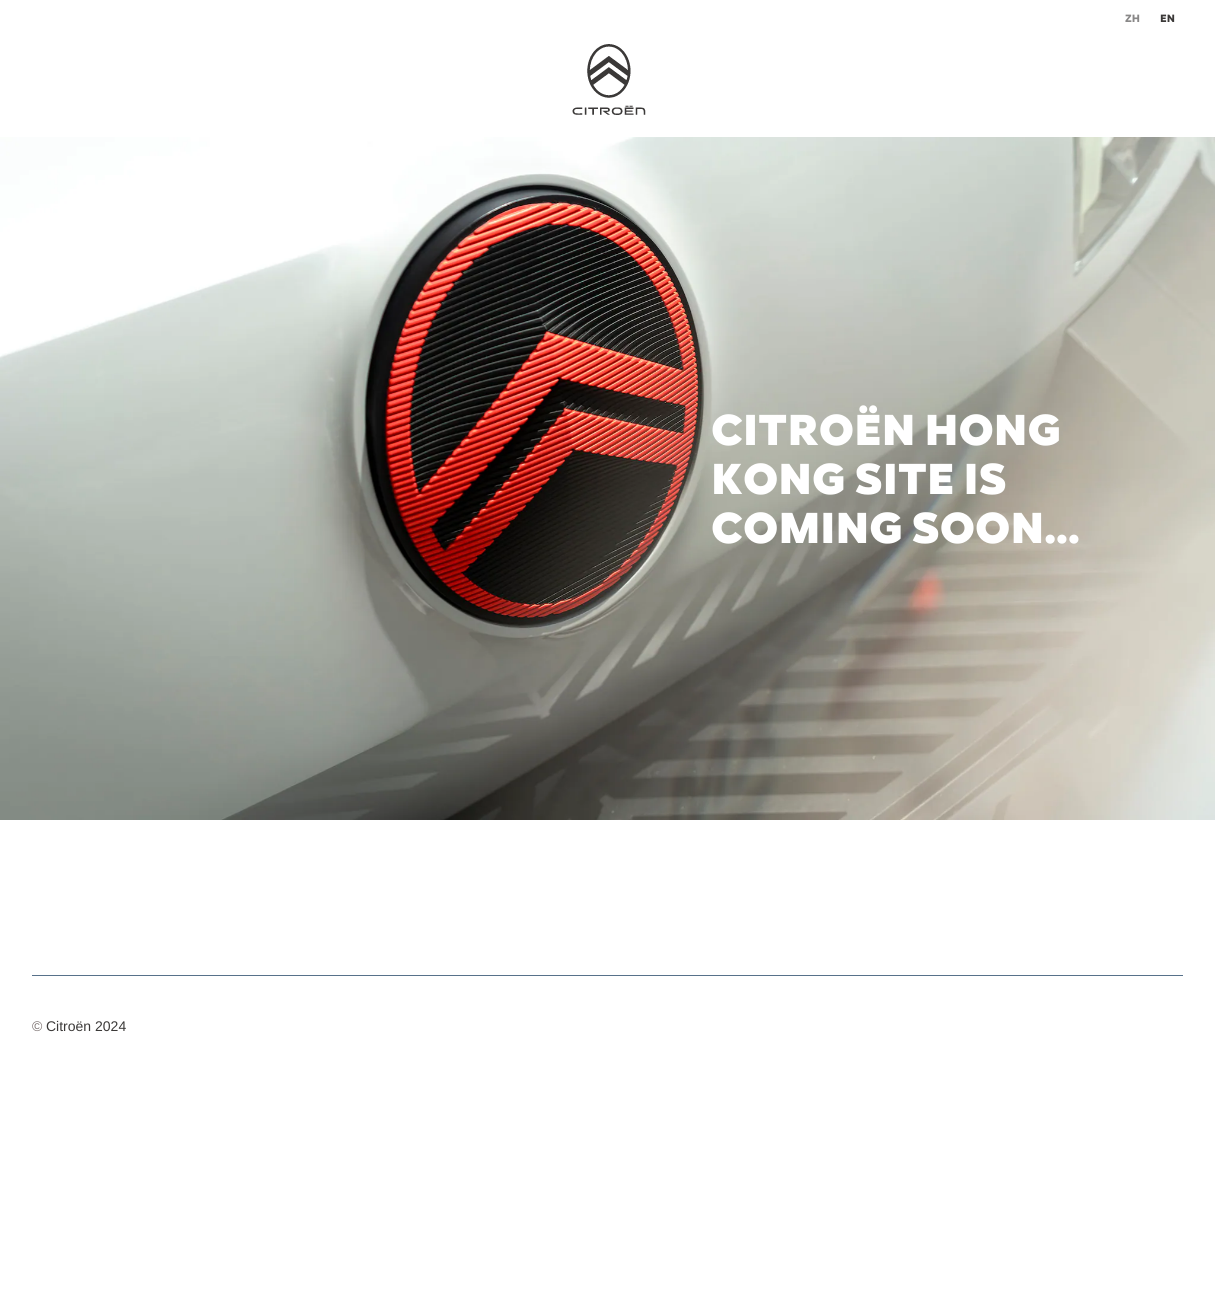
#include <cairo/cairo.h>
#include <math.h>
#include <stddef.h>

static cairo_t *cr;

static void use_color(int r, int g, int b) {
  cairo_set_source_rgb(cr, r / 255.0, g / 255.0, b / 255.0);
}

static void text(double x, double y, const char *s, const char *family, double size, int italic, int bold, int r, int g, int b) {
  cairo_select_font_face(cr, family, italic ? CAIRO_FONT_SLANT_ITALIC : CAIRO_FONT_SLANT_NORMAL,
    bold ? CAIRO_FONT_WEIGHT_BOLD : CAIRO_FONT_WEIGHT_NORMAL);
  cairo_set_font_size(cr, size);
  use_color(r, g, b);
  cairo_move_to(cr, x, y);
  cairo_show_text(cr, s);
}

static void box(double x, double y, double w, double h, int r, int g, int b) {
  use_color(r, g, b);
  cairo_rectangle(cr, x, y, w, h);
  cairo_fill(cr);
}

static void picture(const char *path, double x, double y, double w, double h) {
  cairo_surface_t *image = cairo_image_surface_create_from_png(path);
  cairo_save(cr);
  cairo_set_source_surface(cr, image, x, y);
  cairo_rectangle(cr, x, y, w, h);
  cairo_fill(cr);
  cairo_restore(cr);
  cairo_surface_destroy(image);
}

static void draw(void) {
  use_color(255, 255, 255);
  cairo_paint(cr);
  picture("img_01.png", 572, 44, 74, 71);
  picture("img_02.png", 0, 137, 1215, 683);
  box(32, 975, 1151, 1, 87, 113, 138);
  text(1125, 22, "ZH", "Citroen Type", 11, 0, 1, 137, 136, 136);
  text(1160, 22, "EN", "Citroen Type", 11, 0, 1, 59, 57, 56);
  text(711, 445, "CITROËN HONG", "Citroen Type Black", 45, 0, 0, 255, 255, 255);
  text(711, 494, "KONG SITE IS", "Citroen Type Black", 45, 0, 0, 255, 255, 255);
  text(711, 543, "COMING SOON...", "Citroen Type Black", 45, 0, 0, 255, 255, 255);
  text(32, 1031, "©", "Liberation Sans", 14, 0, 0, 121, 111, 110);
  text(46, 1031, "Citroën 2024", "Liberation Sans", 14, 0, 0, 59, 57, 56);
}

int main(void) {
  cairo_surface_t *surface = cairo_image_surface_create(CAIRO_FORMAT_RGB24, 1215, 1307);
  cr = cairo_create(surface);
  cairo_font_options_t *options = cairo_font_options_create();
  cairo_font_options_set_hint_metrics(options, CAIRO_HINT_METRICS_OFF);
  cairo_font_options_set_hint_style(options, CAIRO_HINT_STYLE_NONE);
  cairo_set_font_options(cr, options);
  cairo_set_miter_limit(cr, 4);
  draw();
  cairo_surface_write_to_png(surface, "out.png");
  cairo_font_options_destroy(options);
  cairo_destroy(cr);
  cairo_surface_destroy(surface);
  return 0;
}
